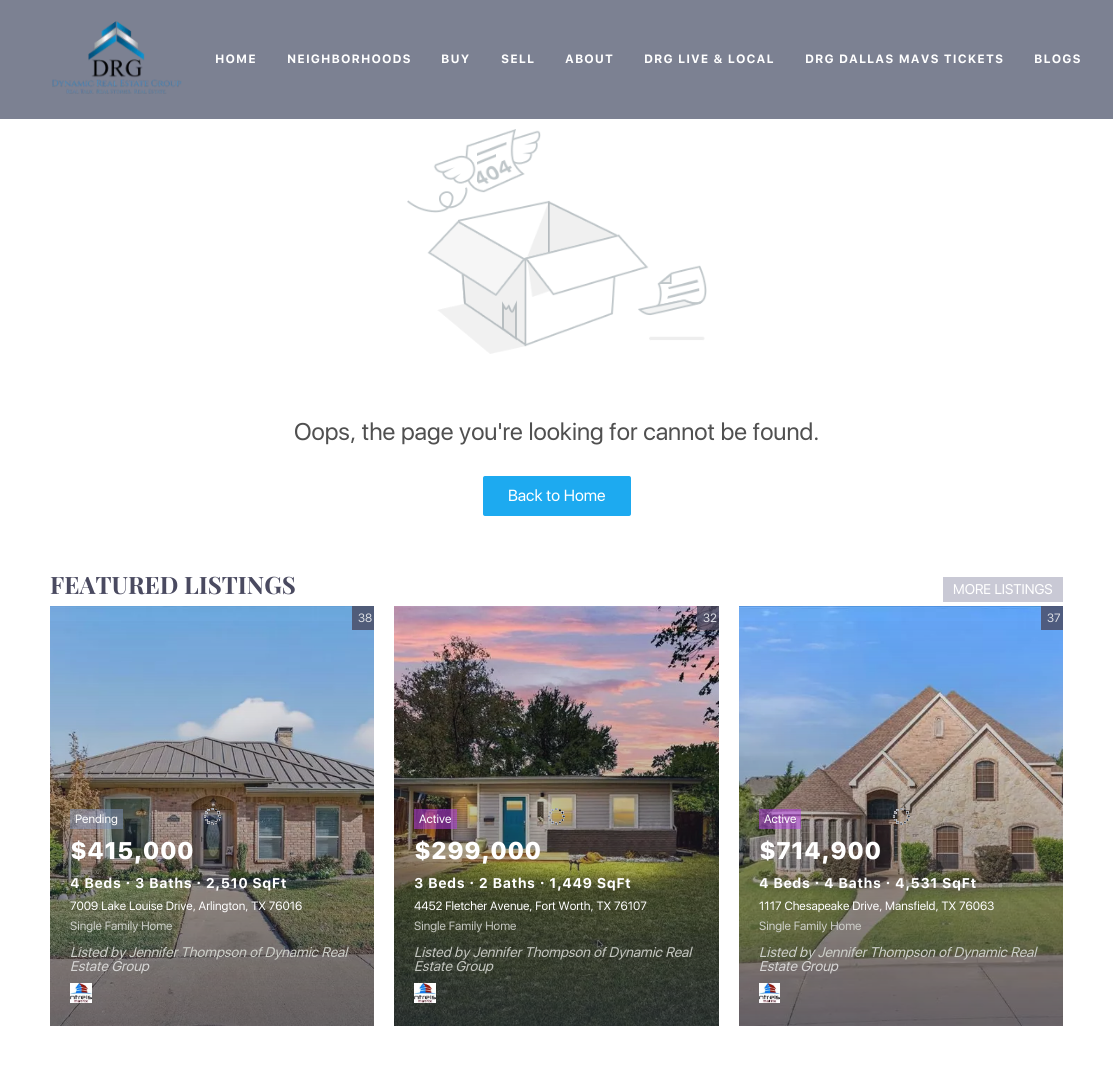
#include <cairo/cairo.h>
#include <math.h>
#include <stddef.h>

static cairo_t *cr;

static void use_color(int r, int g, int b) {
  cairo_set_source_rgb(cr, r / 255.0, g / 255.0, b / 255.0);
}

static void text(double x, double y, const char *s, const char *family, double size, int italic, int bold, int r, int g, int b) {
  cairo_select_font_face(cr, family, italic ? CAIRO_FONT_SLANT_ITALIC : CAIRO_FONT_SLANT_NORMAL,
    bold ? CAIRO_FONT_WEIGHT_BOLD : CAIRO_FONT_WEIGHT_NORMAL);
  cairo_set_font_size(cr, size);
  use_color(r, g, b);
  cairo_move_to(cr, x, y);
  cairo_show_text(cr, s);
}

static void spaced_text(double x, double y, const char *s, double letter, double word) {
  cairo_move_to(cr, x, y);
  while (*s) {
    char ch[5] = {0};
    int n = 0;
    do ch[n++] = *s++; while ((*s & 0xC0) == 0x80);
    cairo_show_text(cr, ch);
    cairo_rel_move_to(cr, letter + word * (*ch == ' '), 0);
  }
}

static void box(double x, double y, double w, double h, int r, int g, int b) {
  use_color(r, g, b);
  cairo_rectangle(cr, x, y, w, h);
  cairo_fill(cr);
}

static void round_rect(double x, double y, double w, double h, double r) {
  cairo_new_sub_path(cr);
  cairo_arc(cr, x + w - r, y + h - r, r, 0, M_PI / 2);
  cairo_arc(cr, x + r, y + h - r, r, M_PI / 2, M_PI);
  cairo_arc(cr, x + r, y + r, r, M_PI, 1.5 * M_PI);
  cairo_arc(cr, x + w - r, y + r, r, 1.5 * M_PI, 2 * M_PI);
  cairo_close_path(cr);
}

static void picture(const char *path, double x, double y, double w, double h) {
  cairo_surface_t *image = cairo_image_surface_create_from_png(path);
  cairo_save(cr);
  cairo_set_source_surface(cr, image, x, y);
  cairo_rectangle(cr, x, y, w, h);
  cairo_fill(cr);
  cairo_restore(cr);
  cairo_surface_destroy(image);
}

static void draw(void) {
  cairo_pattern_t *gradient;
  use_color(255, 255, 255);
  cairo_paint(cr);
  box(0, 0, 1113, 119, 124, 129, 146);
  picture("img_01.png", 52, 21, 130, 73);
  picture("img_02.png", 407, 129, 300, 225);
  use_color(29, 170, 240);
  round_rect(483, 476, 148, 40, 2);
  cairo_fill(cr);
  box(943, 577, 120, 25, 201, 201, 213);
  picture("img_03.png", 50, 606, 324, 420);
  picture("img_04.png", 204, 808, 17, 17);
  gradient = cairo_pattern_create_linear(212, 606, 212, 1026);
  cairo_pattern_add_color_stop_rgba(gradient, 0, 0.141, 0.165, 0.239, 0);
  cairo_pattern_add_color_stop_rgba(gradient, 1, 0.141, 0.165, 0.239, 0.6);
  cairo_pattern_add_color_stop_rgba(gradient, 1, 0.141, 0.165, 0.239, 1);
  cairo_set_source(cr, gradient);
  cairo_pattern_destroy(gradient);
  cairo_rectangle(cr, 50, 621, 324, 405);
  cairo_fill(cr);
  cairo_set_source_rgba(cr, 0.29, 0.29, 0.376, 0.8);
  cairo_rectangle(cr, 352, 606, 22, 24);
  cairo_fill(cr);
  cairo_set_source_rgba(cr, 0.506, 0.584, 0.741, 0.5);
  cairo_rectangle(cr, 70, 809, 53, 20);
  cairo_fill(cr);
  picture("img_05.png", 70, 983, 22, 20);
  picture("img_06.png", 394, 606, 325, 420);
  picture("img_07.png", 548, 808, 17, 17);
  gradient = cairo_pattern_create_linear(557, 606, 557, 1026);
  cairo_pattern_add_color_stop_rgba(gradient, 0, 0.141, 0.165, 0.239, 0);
  cairo_pattern_add_color_stop_rgba(gradient, 1, 0.141, 0.165, 0.239, 0.6);
  cairo_pattern_add_color_stop_rgba(gradient, 1, 0.141, 0.165, 0.239, 1);
  cairo_set_source(cr, gradient);
  cairo_pattern_destroy(gradient);
  cairo_rectangle(cr, 394, 621, 325, 405);
  cairo_fill(cr);
  cairo_set_source_rgba(cr, 0.29, 0.29, 0.376, 0.8);
  cairo_rectangle(cr, 697, 606, 22, 24);
  cairo_fill(cr);
  cairo_set_source_rgba(cr, 0.733, 0.251, 0.937, 0.5);
  cairo_rectangle(cr, 414, 809, 43, 20);
  cairo_fill(cr);
  picture("img_05.png", 414, 983, 22, 20);
  picture("img_08.png", 739, 606, 324, 420);
  picture("img_09.png", 893, 808, 17, 17);
  gradient = cairo_pattern_create_linear(901, 606, 901, 1026);
  cairo_pattern_add_color_stop_rgba(gradient, 0, 0.141, 0.165, 0.239, 0);
  cairo_pattern_add_color_stop_rgba(gradient, 1, 0.141, 0.165, 0.239, 0.6);
  cairo_pattern_add_color_stop_rgba(gradient, 1, 0.141, 0.165, 0.239, 1);
  cairo_set_source(cr, gradient);
  cairo_pattern_destroy(gradient);
  cairo_rectangle(cr, 739, 621, 324, 405);
  cairo_fill(cr);
  cairo_set_source_rgba(cr, 0.29, 0.29, 0.376, 0.8);
  cairo_rectangle(cr, 1041, 606, 22, 24);
  cairo_fill(cr);
  cairo_set_source_rgba(cr, 0.733, 0.251, 0.937, 0.5);
  cairo_rectangle(cr, 759, 809, 42, 20);
  cairo_fill(cr);
  picture("img_10.png", 759, 983, 21, 20);
  cairo_select_font_face(cr, "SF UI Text", CAIRO_FONT_SLANT_NORMAL, CAIRO_FONT_WEIGHT_BOLD);
  cairo_set_font_size(cr, 12);
  use_color(255, 255, 255);
  spaced_text(215, 63, "HOME", 1.1, 0);
  spaced_text(287, 63, "NEIGHBORHOODS", 1.1, 0);
  spaced_text(441, 63, "BUY", 1.1, 0);
  spaced_text(501, 63, "SELL", 1.1, 0);
  spaced_text(565, 63, "ABOUT", 1.1, 0);
  spaced_text(644, 63, "DRG LIVE & LOCAL", 1.1, 0);
  spaced_text(805, 63, "DRG DALLAS MAVS TICKETS", 1.1, 0);
  spaced_text(1034, 63, "BLOGS", 1.1, 0);
  text(294, 440, "Oops, the page you're looking for cannot be found.", "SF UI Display", 24, 0, 0, 80, 80, 80);
  text(508, 501, "Back to Home", "SF UI Display", 16, 0, 0, 255, 255, 255);
  text(50, 594, "FEATURED LISTINGS", "Playfair Display", 24, 0, 1, 74, 74, 96);
  text(953, 594, "MORE LISTINGS", "SF UI Display", 14, 0, 0, 255, 255, 255);
  text(358, 622, "38", "SF UI Display", 12, 0, 0, 220, 222, 228);
  text(75, 823, "Pending", "SF UI Display", 12, 0, 0, 255, 255, 255);
  text(70, 859, "$415,000", "SF UI Text Black", 24, 0, 0, 255, 255, 255);
  cairo_select_font_face(cr, "SF UI Text", CAIRO_FONT_SLANT_NORMAL, CAIRO_FONT_WEIGHT_BOLD);
  cairo_set_font_size(cr, 14);
  spaced_text(70, 888, "4 Beds · 3 Baths · 2,510 SqFt", 0.5, 0);
  text(70, 910, "7009 Lake Louise Drive, Arlington, TX 76016", "SF UI Display", 12, 0, 0, 255, 255, 255);
  text(70, 930, "Single Family Home", "SF UI Display", 12, 0, 0, 205, 207, 201);
  text(70, 957, "Listed by Jennifer Thompson of Dynamic Real", "SF UI Display", 14, 1, 0, 205, 207, 201);
  text(70, 971, "Estate Group", "SF UI Display", 14, 1, 0, 214, 213, 212);
  text(703, 622, "32", "SF UI Display", 12, 0, 0, 220, 222, 228);
  text(419, 823, "Active", "SF UI Display", 12, 0, 0, 255, 255, 255);
  text(414, 859, "$299,000", "SF UI Text Black", 24, 0, 0, 255, 255, 255);
  cairo_select_font_face(cr, "SF UI Text", CAIRO_FONT_SLANT_NORMAL, CAIRO_FONT_WEIGHT_BOLD);
  cairo_set_font_size(cr, 14);
  spaced_text(414, 888, "3 Beds · 2 Baths · 1,449 SqFt", 0.5, 0);
  text(414, 910, "4452 Fletcher Avenue, Fort Worth, TX 76107", "SF UI Display", 12, 0, 0, 255, 255, 255);
  text(414, 930, "Single Family Home", "SF UI Display", 12, 0, 0, 196, 198, 192);
  text(414, 957, "Listed by Jennifer Thompson of Dynamic Real", "SF UI Display", 14, 1, 0, 196, 198, 192);
  text(414, 971, "Estate Group", "SF UI Display", 14, 1, 0, 196, 198, 192);
  text(1047, 622, "37", "SF UI Display", 12, 0, 0, 220, 222, 228);
  text(764, 823, "Active", "SF UI Display", 12, 0, 0, 255, 255, 255);
  text(759, 859, "$714,900", "SF UI Text Black", 24, 0, 0, 255, 255, 255);
  cairo_select_font_face(cr, "SF UI Text", CAIRO_FONT_SLANT_NORMAL, CAIRO_FONT_WEIGHT_BOLD);
  cairo_set_font_size(cr, 14);
  spaced_text(759, 888, "4 Beds · 4 Baths · 4,531 SqFt", 0.5, 0);
  text(759, 910, "1117 Chesapeake Drive, Mansfield, TX 76063", "SF UI Display", 12, 0, 0, 255, 255, 255);
  text(759, 930, "Single Family Home", "SF UI Display", 12, 0, 0, 205, 207, 201);
  text(759, 957, "Listed by Jennifer Thompson of Dynamic Real", "SF UI Display", 14, 1, 0, 205, 207, 201);
  text(759, 971, "Estate Group", "SF UI Display", 14, 1, 0, 214, 213, 212);
}

int main(void) {
  cairo_surface_t *surface = cairo_image_surface_create(CAIRO_FORMAT_RGB24, 1113, 1070);
  cr = cairo_create(surface);
  cairo_font_options_t *options = cairo_font_options_create();
  cairo_font_options_set_hint_metrics(options, CAIRO_HINT_METRICS_OFF);
  cairo_font_options_set_hint_style(options, CAIRO_HINT_STYLE_NONE);
  cairo_set_font_options(cr, options);
  cairo_set_miter_limit(cr, 4);
  draw();
  cairo_surface_write_to_png(surface, "out.png");
  cairo_font_options_destroy(options);
  cairo_destroy(cr);
  cairo_surface_destroy(surface);
  return 0;
}
